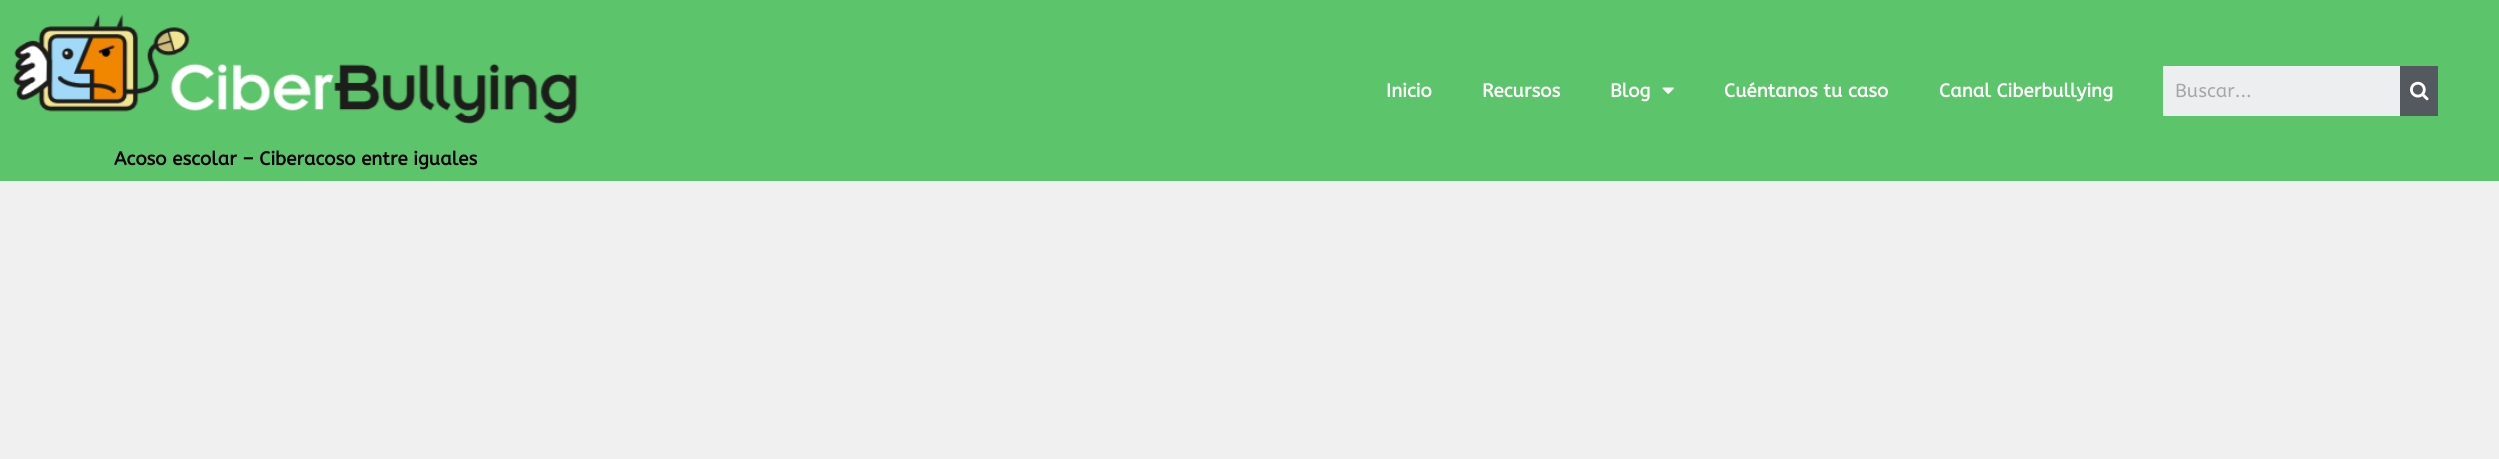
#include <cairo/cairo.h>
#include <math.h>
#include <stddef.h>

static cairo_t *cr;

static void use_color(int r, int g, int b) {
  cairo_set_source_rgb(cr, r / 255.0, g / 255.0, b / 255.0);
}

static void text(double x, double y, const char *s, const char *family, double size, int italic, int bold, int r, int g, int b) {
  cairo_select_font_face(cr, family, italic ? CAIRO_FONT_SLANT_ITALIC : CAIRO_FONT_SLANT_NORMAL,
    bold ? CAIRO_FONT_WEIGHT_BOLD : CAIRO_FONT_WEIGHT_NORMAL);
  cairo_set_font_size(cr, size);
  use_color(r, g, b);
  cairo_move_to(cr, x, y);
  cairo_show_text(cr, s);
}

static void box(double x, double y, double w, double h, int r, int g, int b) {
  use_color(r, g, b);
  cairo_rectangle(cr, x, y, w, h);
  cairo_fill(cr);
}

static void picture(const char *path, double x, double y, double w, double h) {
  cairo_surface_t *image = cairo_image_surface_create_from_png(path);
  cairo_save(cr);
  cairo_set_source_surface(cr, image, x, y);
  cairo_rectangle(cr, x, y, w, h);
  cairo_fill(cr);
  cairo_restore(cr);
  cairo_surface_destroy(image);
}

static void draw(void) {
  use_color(240, 240, 240);
  cairo_paint(cr);
  box(0, 0, 2499, 181, 92, 196, 106);
  picture("img_01.png", 1662, 87, 12, 7);
  box(2163, 66, 237, 50, 236, 238, 239);
  box(2400, 66, 38, 50, 84, 89, 95);
  picture("img_02.png", 2410, 81, 19, 20);
  picture("img_03.png", 13, 14, 565, 110);
  text(1386, 97, "Inicio", "ABeeZee", 18.75, 0, 1, 255, 255, 255);
  text(1482, 97, "Recursos", "ABeeZee", 18.75, 0, 1, 255, 255, 255);
  text(1610, 97, "Blog", "ABeeZee", 18.75, 0, 1, 255, 255, 255);
  text(1724, 97, "Cuéntanos tu caso", "ABeeZee", 18.75, 0, 1, 255, 255, 255);
  text(1939, 97, "Canal Ciberbullying", "ABeeZee", 18.75, 0, 1, 255, 255, 255);
  text(2175, 97, "Buscar...", "ABeeZee", 18.75, 0, 0, 166, 167, 167);
  text(114, 165, "Acoso escolar – Ciberacoso entre iguales", "ABeeZee", 18.75, 0, 1, 0, 0, 0);
}

int main(void) {
  cairo_surface_t *surface = cairo_image_surface_create(CAIRO_FORMAT_RGB24, 2499, 459);
  cr = cairo_create(surface);
  cairo_font_options_t *options = cairo_font_options_create();
  cairo_font_options_set_hint_metrics(options, CAIRO_HINT_METRICS_OFF);
  cairo_font_options_set_hint_style(options, CAIRO_HINT_STYLE_NONE);
  cairo_set_font_options(cr, options);
  cairo_set_miter_limit(cr, 4);
  draw();
  cairo_surface_write_to_png(surface, "out.png");
  cairo_font_options_destroy(options);
  cairo_destroy(cr);
  cairo_surface_destroy(surface);
  return 0;
}
